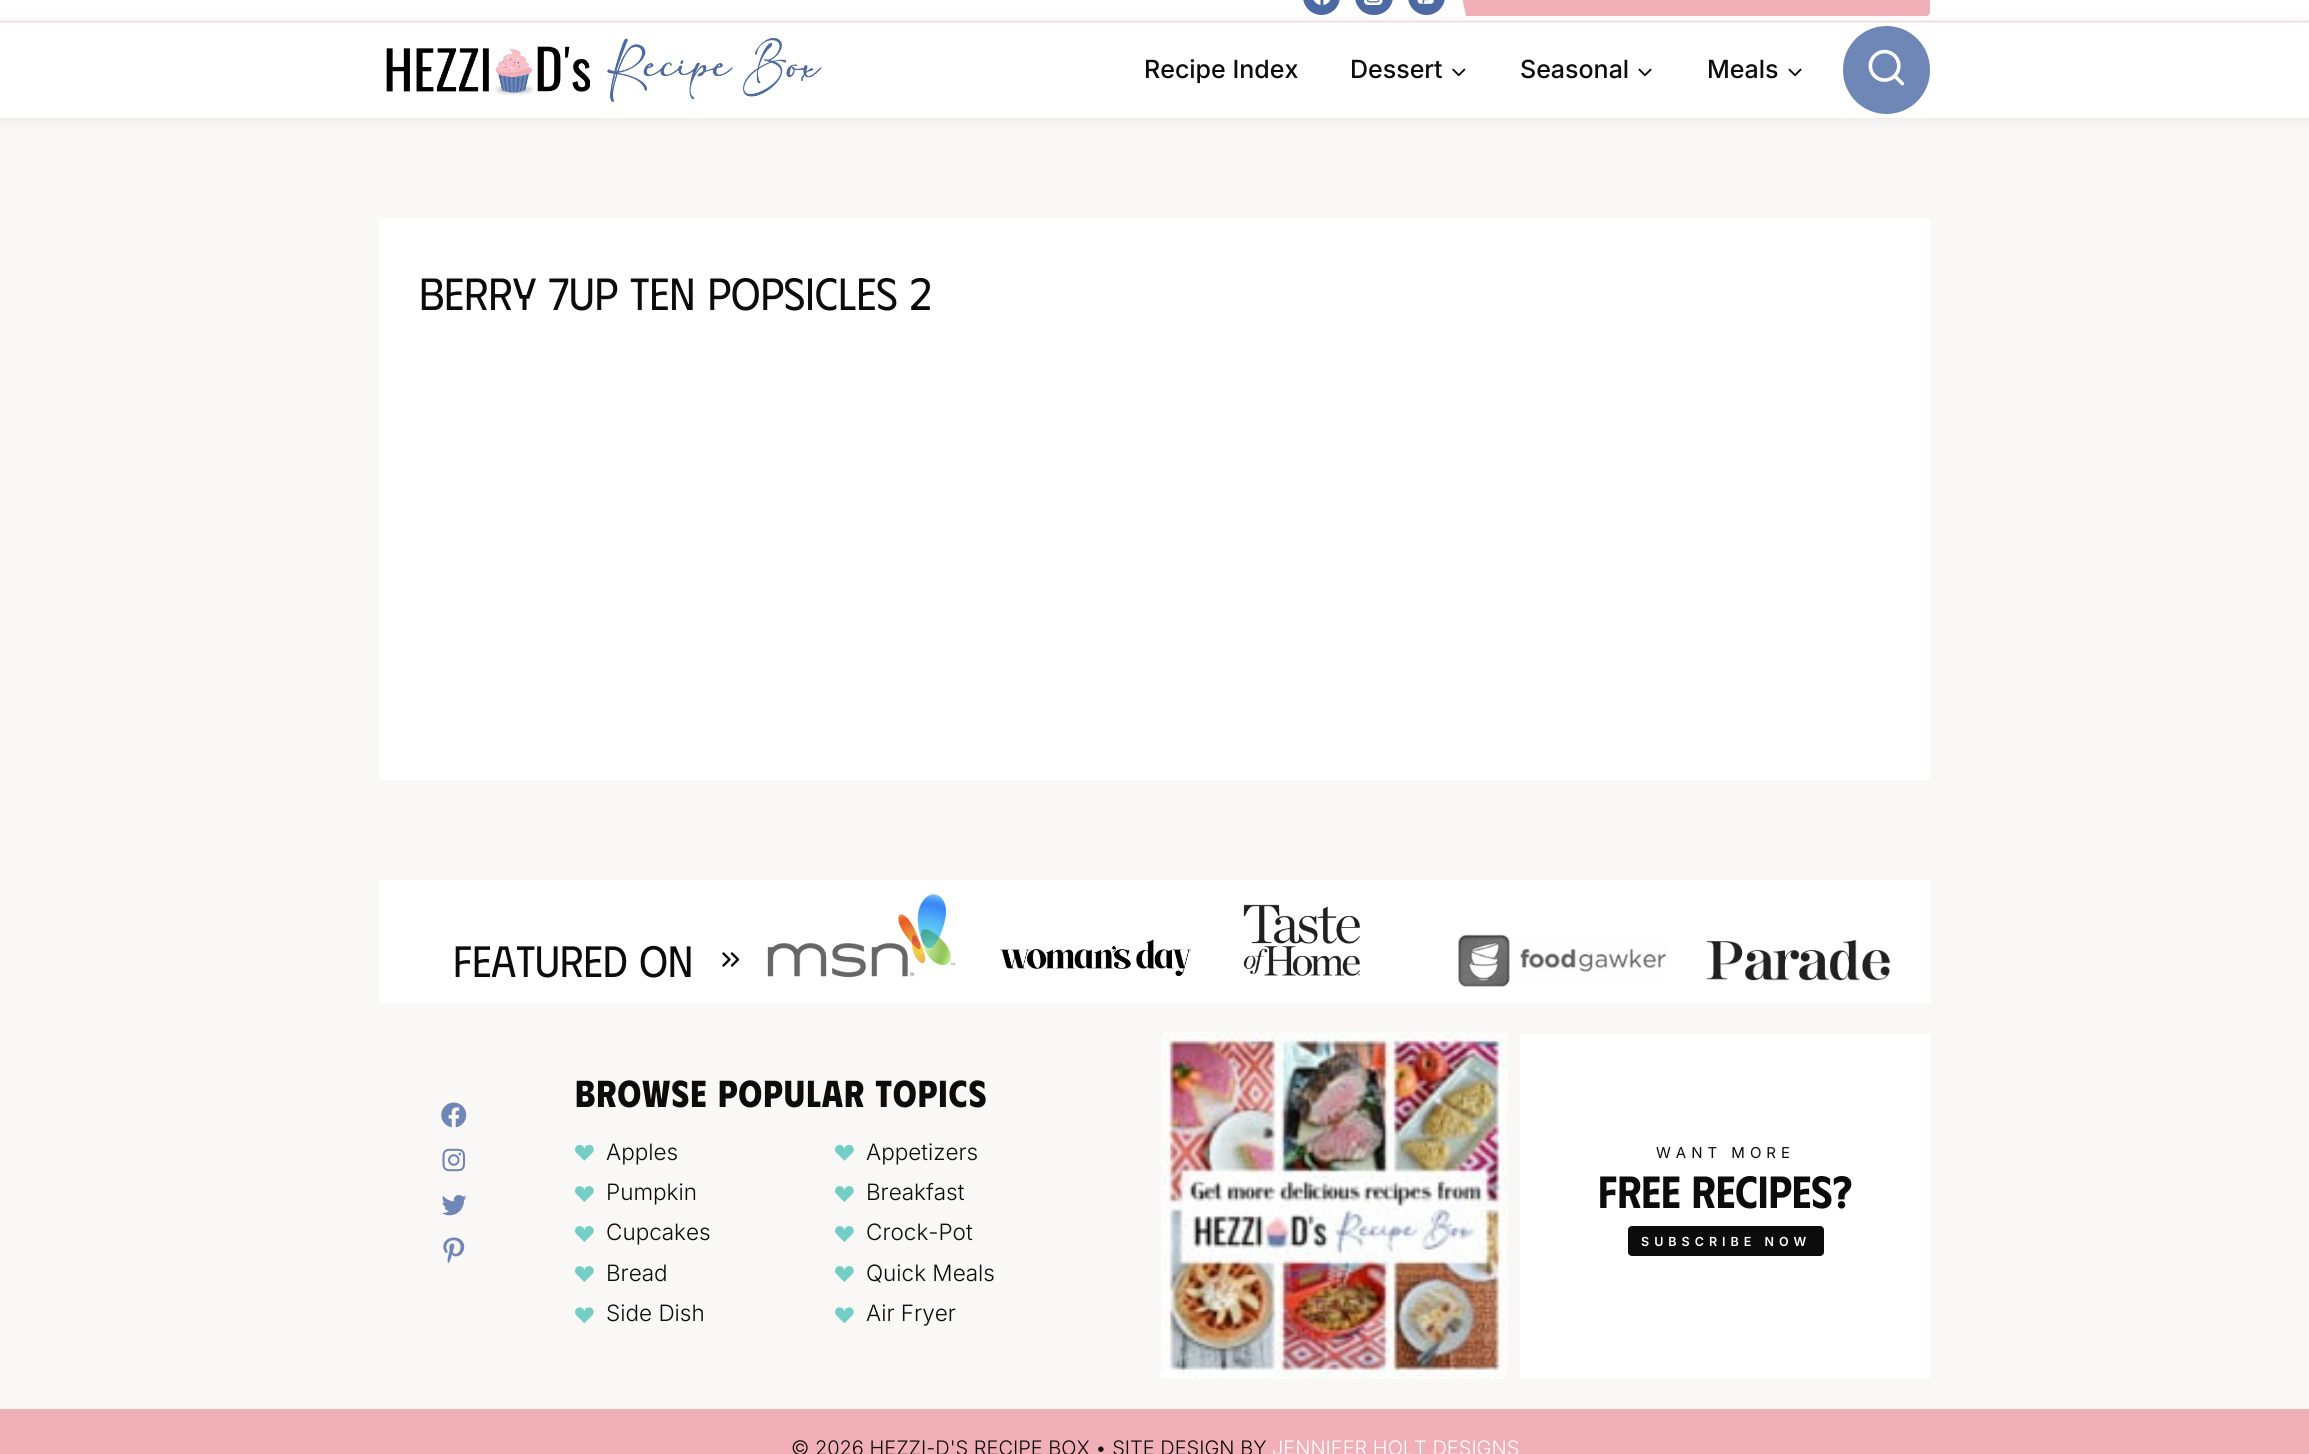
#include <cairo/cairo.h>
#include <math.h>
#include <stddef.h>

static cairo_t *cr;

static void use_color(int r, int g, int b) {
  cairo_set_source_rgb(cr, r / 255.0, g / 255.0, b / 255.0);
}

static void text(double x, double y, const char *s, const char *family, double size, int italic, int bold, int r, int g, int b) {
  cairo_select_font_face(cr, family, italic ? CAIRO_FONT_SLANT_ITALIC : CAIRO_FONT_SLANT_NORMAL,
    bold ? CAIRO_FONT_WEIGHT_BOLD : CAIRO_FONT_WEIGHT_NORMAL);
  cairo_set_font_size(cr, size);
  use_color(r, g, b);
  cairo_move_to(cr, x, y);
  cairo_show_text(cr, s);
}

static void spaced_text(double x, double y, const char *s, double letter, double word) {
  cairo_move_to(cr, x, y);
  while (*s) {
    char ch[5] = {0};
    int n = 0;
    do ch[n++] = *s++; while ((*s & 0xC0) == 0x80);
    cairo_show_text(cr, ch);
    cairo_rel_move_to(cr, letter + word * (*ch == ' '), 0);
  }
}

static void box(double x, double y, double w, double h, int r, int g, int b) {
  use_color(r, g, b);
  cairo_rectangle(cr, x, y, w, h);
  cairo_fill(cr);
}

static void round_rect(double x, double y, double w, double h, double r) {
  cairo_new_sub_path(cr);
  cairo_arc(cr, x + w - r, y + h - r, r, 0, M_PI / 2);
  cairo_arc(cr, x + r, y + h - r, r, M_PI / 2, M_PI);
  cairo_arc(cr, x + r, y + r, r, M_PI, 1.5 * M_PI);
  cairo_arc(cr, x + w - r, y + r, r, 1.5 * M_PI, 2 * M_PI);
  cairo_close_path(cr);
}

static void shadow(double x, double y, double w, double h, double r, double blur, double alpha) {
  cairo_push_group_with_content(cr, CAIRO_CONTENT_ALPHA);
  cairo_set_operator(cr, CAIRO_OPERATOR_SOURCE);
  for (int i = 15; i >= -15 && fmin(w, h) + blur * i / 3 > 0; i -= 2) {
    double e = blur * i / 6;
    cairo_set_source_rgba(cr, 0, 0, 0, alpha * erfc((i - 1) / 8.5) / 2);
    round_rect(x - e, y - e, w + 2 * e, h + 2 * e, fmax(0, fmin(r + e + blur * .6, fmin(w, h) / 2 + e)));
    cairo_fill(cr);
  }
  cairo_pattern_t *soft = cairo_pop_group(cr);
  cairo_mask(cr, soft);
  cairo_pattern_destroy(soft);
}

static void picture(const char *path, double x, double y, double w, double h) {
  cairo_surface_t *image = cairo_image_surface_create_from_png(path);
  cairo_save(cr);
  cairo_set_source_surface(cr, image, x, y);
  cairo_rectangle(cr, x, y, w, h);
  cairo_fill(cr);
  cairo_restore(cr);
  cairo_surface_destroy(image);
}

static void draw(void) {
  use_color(249, 248, 246);
  cairo_paint(cr);
  box(0, 0, 2309, 118, 255, 255, 255);
  box(0, 21, 2309, 1, 249, 221, 225);
  use_color(76, 105, 164);
  round_rect(1303, -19, 37, 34, 18.5);
  cairo_fill(cr);
  picture("img_01.png", 1313, 0, 18, 5);
  round_rect(1355, -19, 38, 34, 18.5);
  cairo_fill(cr);
  picture("img_02.png", 1364, 0, 19, 5);
  round_rect(1408, -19, 37, 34, 18.5);
  cairo_fill(cr);
  picture("img_03.png", 1417, 0, 17, 4);
  use_color(241, 175, 184);
  cairo_new_path(cr);
  cairo_move_to(cr, 1459, -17);
  cairo_line_to(cr, 1913, -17);
  cairo_line_to(cr, 1920, 16);
  cairo_line_to(cr, 1466, 16);
  cairo_close_path(cr);
  cairo_fill(cr);
  round_rect(1476, -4, 454, 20, 4);
  cairo_fill(cr);
  cairo_save(cr);
  cairo_set_fill_rule(cr, CAIRO_FILL_RULE_EVEN_ODD);
  cairo_new_path(cr);
  cairo_move_to(cr, 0, 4);
  cairo_line_to(cr, 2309, 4);
  cairo_line_to(cr, 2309, 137);
  cairo_line_to(cr, 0, 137);
  cairo_close_path(cr);
  cairo_move_to(cr, 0, 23);
  cairo_line_to(cr, 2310, 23);
  cairo_line_to(cr, 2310, 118);
  cairo_line_to(cr, 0, 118);
  cairo_close_path(cr);
  cairo_clip(cr);
  use_color(33, 33, 33);
  shadow(0, 23, 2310, 95, 0, 6, 0.1);
  cairo_restore(cr);
  picture("img_04.png", 386, 38, 436, 64);
  picture("img_05.png", 1452, 68, 14, 9);
  picture("img_06.png", 1638, 68, 14, 9);
  picture("img_06.png", 1788, 68, 14, 9);
  use_color(111, 135, 183);
  round_rect(1843, 26, 87, 88, 43.5);
  cairo_fill(cr);
  picture("img_07.png", 1868, 49, 37, 37);
  use_color(255, 255, 255);
  round_rect(379, 218, 1552, 562, 5);
  cairo_fill(cr);
  box(379, 880, 1552, 123, 255, 255, 255);
  cairo_new_path(cr);
  cairo_move_to(cr, 732, 965.5);
  cairo_line_to(cr, 738, 959.5);
  cairo_line_to(cr, 732, 953.5);
  cairo_move_to(cr, 723.5, 965.5);
  cairo_line_to(cr, 729.5, 959.5);
  cairo_line_to(cr, 723.5, 953.5);
  use_color(12, 12, 12);
  cairo_set_line_width(cr, 2.4);
  cairo_set_line_cap(cr, CAIRO_LINE_CAP_ROUND);
  cairo_set_line_join(cr, CAIRO_LINE_JOIN_ROUND);
  cairo_stroke(cr);
  picture("img_08.png", 767, 894, 189, 84);
  picture("img_09.png", 1000, 939, 191, 37);
  picture("img_10.png", 1243, 904, 117, 72);
  picture("img_11.png", 1455, 931, 213, 57);
  picture("img_12.png", 1706, 940, 184, 41);
  picture("img_13.png", 441, 1102, 26, 26);
  picture("img_14.png", 442, 1148, 23, 24);
  picture("img_15.png", 441, 1195, 26, 21);
  picture("img_16.png", 443, 1237, 22, 27);
  picture("img_17.png", 575, 1144, 19, 17);
  picture("img_17.png", 835, 1144, 19, 17);
  picture("img_18.png", 575, 1186, 19, 16);
  picture("img_18.png", 835, 1186, 19, 16);
  picture("img_18.png", 575, 1226, 19, 16);
  picture("img_18.png", 835, 1226, 19, 16);
  picture("img_18.png", 575, 1266, 19, 16);
  picture("img_18.png", 835, 1266, 19, 16);
  picture("img_19.png", 575, 1307, 19, 17);
  picture("img_19.png", 835, 1307, 19, 17);
  picture("img_20.png", 1161, 1032, 347, 347);
  box(1520, 1034, 411, 344, 255, 255, 255);
  use_color(12, 12, 12);
  round_rect(1628, 1226, 196, 30, 4);
  cairo_fill(cr);
  box(0, 1409, 2309, 45, 241, 175, 184);
  text(1144, 78, "Recipe Index", "Inter Medium", 25, 0, 0, 12, 12, 12);
  text(1350, 78, "Dessert", "Inter Medium", 25, 0, 0, 12, 12, 12);
  text(1520, 78, "Seasonal", "Inter Medium", 25, 0, 0, 12, 12, 12);
  text(1707, 78, "Meals", "Inter Medium", 25, 0, 0, 12, 12, 12);
  text(419, 310, "Berry 7UP Ten Popsicles 2", "Phudu", 45, 0, 0, 12, 12, 12);
  text(453, 977, "FEatured on", "Phudu", 43.75, 0, 0, 12, 12, 12);
  cairo_select_font_face(cr, "Phudu", CAIRO_FONT_SLANT_NORMAL, CAIRO_FONT_WEIGHT_BOLD);
  cairo_set_font_size(cr, 37.5);
  spaced_text(575, 1107, "browse popular topics", 1.25, 0);
  text(606, 1160, "Apples", "Inter Light", 22.5, 0, 0, 12, 12, 12);
  text(866, 1160, "Appetizers", "Inter Light", 22.5, 0, 0, 12, 12, 12);
  text(606, 1200, "Pumpkin", "Inter Light", 22.5, 0, 0, 12, 12, 12);
  text(866, 1200, "Breakfast", "Inter Light", 22.5, 0, 0, 12, 12, 12);
  text(606, 1240, "Cupcakes", "Inter Light", 22.5, 0, 0, 12, 12, 12);
  text(866, 1240, "Crock-Pot", "Inter Light", 22.5, 0, 0, 12, 12, 12);
  text(606, 1281, "Bread", "Inter Light", 22.5, 0, 0, 12, 12, 12);
  text(866, 1281, "Quick Meals", "Inter Light", 22.5, 0, 0, 12, 12, 12);
  text(606, 1321, "Side Dish", "Inter Light", 22.5, 0, 0, 12, 12, 12);
  text(866, 1321, "Air Fryer", "Inter Light", 22.5, 0, 0, 12, 12, 12);
  cairo_select_font_face(cr, "Inter", CAIRO_FONT_SLANT_NORMAL, CAIRO_FONT_WEIGHT_NORMAL);
  cairo_set_font_size(cr, 15);
  spaced_text(1656, 1158, "WANT MORE", 5, 0);
  text(1598, 1208, "free recipes?", "Phudu SemiBold", 45, 0, 0, 12, 12, 12);
  cairo_select_font_face(cr, "Inter SemiBold", CAIRO_FONT_SLANT_NORMAL, CAIRO_FONT_WEIGHT_NORMAL);
  cairo_set_font_size(cr, 12.5);
  use_color(255, 255, 255);
  spaced_text(1641, 1246, "SUBSCRIBE NOW", 5, 0);
  text(791, 1455, "© 2026 HEZZI-D'S RECIPE BOX • SITE DESIGN BY", "Inter Light", 20, 0, 0, 12, 12, 12);
  text(1272, 1455, "JENNIFER HOLT DESIGNS", "Inter Light", 20, 0, 0, 255, 255, 255);
}

int main(void) {
  cairo_surface_t *surface = cairo_image_surface_create(CAIRO_FORMAT_RGB24, 2309, 1454);
  cr = cairo_create(surface);
  cairo_font_options_t *options = cairo_font_options_create();
  cairo_font_options_set_hint_metrics(options, CAIRO_HINT_METRICS_OFF);
  cairo_font_options_set_hint_style(options, CAIRO_HINT_STYLE_NONE);
  cairo_set_font_options(cr, options);
  cairo_set_miter_limit(cr, 4);
  draw();
  cairo_surface_write_to_png(surface, "out.png");
  cairo_font_options_destroy(options);
  cairo_destroy(cr);
  cairo_surface_destroy(surface);
  return 0;
}
